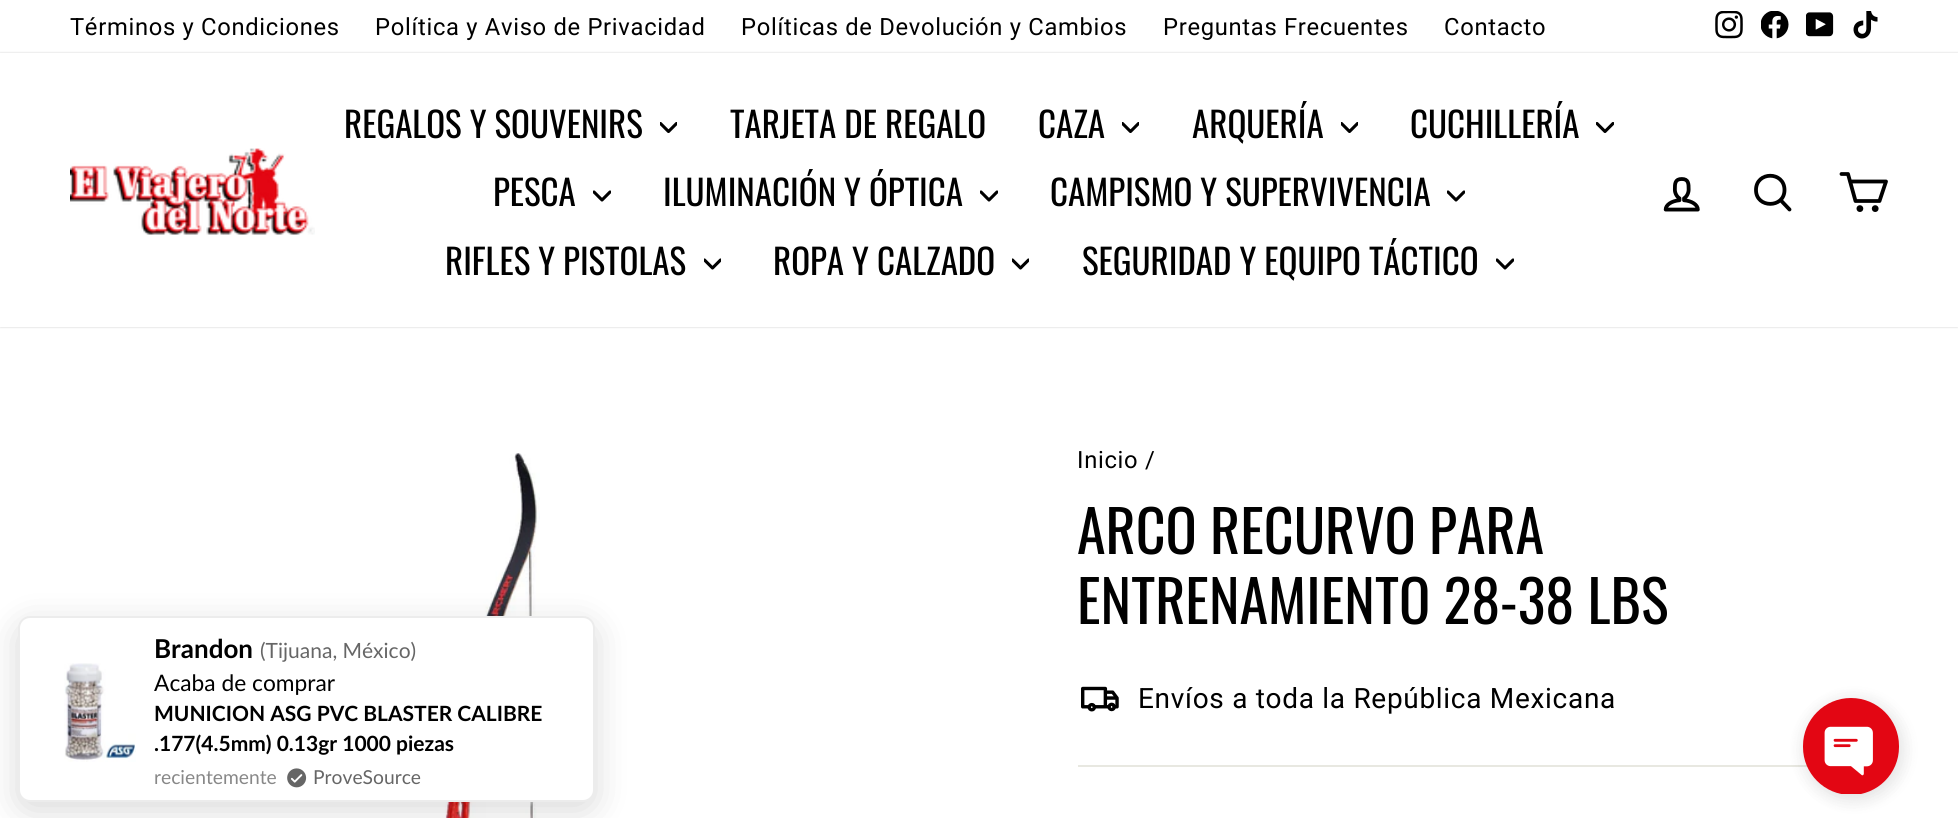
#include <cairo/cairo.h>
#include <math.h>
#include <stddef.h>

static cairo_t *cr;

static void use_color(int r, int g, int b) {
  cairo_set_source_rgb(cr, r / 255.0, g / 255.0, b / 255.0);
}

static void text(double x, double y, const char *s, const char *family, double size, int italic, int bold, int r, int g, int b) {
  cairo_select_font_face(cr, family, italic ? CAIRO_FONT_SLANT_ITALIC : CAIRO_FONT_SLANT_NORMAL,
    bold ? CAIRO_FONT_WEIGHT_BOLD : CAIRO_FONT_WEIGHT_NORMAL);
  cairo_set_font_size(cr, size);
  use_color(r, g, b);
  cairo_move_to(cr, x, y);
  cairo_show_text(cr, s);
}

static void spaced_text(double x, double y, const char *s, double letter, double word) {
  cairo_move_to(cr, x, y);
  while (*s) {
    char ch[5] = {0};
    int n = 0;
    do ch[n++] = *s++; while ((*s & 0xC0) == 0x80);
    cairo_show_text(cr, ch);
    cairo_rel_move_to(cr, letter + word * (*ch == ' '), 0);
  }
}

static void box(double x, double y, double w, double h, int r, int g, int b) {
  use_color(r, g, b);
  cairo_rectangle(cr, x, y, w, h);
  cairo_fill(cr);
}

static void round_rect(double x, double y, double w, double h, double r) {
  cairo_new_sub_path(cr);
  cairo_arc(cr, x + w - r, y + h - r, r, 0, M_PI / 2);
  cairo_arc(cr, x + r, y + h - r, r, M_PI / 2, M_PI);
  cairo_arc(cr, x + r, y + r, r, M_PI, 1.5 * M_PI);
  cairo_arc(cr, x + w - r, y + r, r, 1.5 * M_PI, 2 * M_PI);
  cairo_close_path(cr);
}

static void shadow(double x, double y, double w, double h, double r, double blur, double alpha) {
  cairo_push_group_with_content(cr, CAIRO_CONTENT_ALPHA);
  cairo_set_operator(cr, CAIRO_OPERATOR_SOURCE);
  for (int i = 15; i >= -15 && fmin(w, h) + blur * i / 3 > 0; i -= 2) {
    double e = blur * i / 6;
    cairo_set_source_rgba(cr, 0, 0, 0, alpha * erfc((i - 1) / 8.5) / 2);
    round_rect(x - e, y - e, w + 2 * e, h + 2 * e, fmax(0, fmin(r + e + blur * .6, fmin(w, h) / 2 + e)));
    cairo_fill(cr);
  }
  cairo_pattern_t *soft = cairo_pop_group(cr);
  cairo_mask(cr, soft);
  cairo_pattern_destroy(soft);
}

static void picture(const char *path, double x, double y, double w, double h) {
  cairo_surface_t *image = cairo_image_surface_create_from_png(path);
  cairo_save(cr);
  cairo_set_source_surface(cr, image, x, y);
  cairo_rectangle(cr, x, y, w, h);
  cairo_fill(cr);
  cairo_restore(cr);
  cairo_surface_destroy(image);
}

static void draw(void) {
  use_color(255, 255, 255);
  cairo_paint(cr);
  picture("img_01.png", 1715, 11, 28, 28);
  picture("img_02.png", 1761, 11, 28, 28);
  picture("img_03.png", 1806, 12, 28, 25);
  picture("img_04.png", 1853, 11, 25, 28);
  cairo_save(cr);
  cairo_set_fill_rule(cr, CAIRO_FILL_RULE_EVEN_ODD);
  cairo_new_path(cr);
  cairo_move_to(cr, 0, 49);
  cairo_line_to(cr, 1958, 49);
  cairo_line_to(cr, 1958, 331);
  cairo_line_to(cr, 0, 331);
  cairo_close_path(cr);
  cairo_move_to(cr, 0, 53);
  cairo_line_to(cr, 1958, 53);
  cairo_line_to(cr, 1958, 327);
  cairo_line_to(cr, 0, 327);
  cairo_close_path(cr);
  cairo_clip(cr);
  use_color(0, 0, 0);
  shadow(0, 53, 1958, 274, 0, 1, 0.2);
  cairo_restore(cr);
  picture("img_05.png", 70, 148, 245, 87);
  cairo_save(cr);
  cairo_rectangle(cr, 660, 119, 17, 18);
  cairo_clip(cr);
  cairo_new_path(cr);
  cairo_move_to(cr, 660.5, 123.5);
  cairo_line_to(cr, 668.5, 131.5);
  cairo_line_to(cr, 676.5, 123.5);
  use_color(0, 0, 0);
  cairo_set_line_width(cr, 3.1);
  cairo_set_line_cap(cr, CAIRO_LINE_CAP_ROUND);
  cairo_set_line_join(cr, CAIRO_LINE_JOIN_ROUND);
  cairo_stroke(cr);
  cairo_restore(cr);
  cairo_save(cr);
  cairo_rectangle(cr, 1122, 119, 17, 18);
  cairo_clip(cr);
  cairo_new_path(cr);
  cairo_move_to(cr, 1122.5, 123.5);
  cairo_line_to(cr, 1130.5, 131.5);
  cairo_line_to(cr, 1138.5, 123.5);
  use_color(0, 0, 0);
  cairo_set_line_width(cr, 3.1);
  cairo_set_line_cap(cr, CAIRO_LINE_CAP_ROUND);
  cairo_set_line_join(cr, CAIRO_LINE_JOIN_ROUND);
  cairo_stroke(cr);
  cairo_restore(cr);
  cairo_save(cr);
  cairo_rectangle(cr, 1341, 119, 17, 18);
  cairo_clip(cr);
  cairo_new_path(cr);
  cairo_move_to(cr, 1341.5, 123.5);
  cairo_line_to(cr, 1349.5, 131.5);
  cairo_line_to(cr, 1357.5, 123.5);
  use_color(0, 0, 0);
  cairo_set_line_width(cr, 3.1);
  cairo_set_line_cap(cr, CAIRO_LINE_CAP_ROUND);
  cairo_set_line_join(cr, CAIRO_LINE_JOIN_ROUND);
  cairo_stroke(cr);
  cairo_restore(cr);
  cairo_save(cr);
  cairo_rectangle(cr, 1596, 119, 18, 18);
  cairo_clip(cr);
  cairo_new_path(cr);
  cairo_move_to(cr, 1597, 123.5);
  cairo_line_to(cr, 1605, 131.5);
  cairo_line_to(cr, 1613, 123.5);
  use_color(0, 0, 0);
  cairo_set_line_width(cr, 3.1);
  cairo_set_line_cap(cr, CAIRO_LINE_CAP_ROUND);
  cairo_set_line_join(cr, CAIRO_LINE_JOIN_ROUND);
  cairo_stroke(cr);
  cairo_restore(cr);
  cairo_save(cr);
  cairo_rectangle(cr, 593, 187, 18, 18);
  cairo_clip(cr);
  cairo_new_path(cr);
  cairo_move_to(cr, 594, 192);
  cairo_line_to(cr, 602, 200);
  cairo_line_to(cr, 610, 192);
  use_color(0, 0, 0);
  cairo_set_line_width(cr, 3.1);
  cairo_set_line_cap(cr, CAIRO_LINE_CAP_ROUND);
  cairo_set_line_join(cr, CAIRO_LINE_JOIN_ROUND);
  cairo_stroke(cr);
  cairo_restore(cr);
  cairo_save(cr);
  cairo_rectangle(cr, 980, 187, 18, 18);
  cairo_clip(cr);
  cairo_new_path(cr);
  cairo_move_to(cr, 981, 192);
  cairo_line_to(cr, 989, 200);
  cairo_line_to(cr, 997, 192);
  use_color(0, 0, 0);
  cairo_set_line_width(cr, 3.1);
  cairo_set_line_cap(cr, CAIRO_LINE_CAP_ROUND);
  cairo_set_line_join(cr, CAIRO_LINE_JOIN_ROUND);
  cairo_stroke(cr);
  cairo_restore(cr);
  cairo_save(cr);
  cairo_rectangle(cr, 1447, 187, 18, 18);
  cairo_clip(cr);
  cairo_new_path(cr);
  cairo_move_to(cr, 1448, 192);
  cairo_line_to(cr, 1456, 200);
  cairo_line_to(cr, 1464, 192);
  use_color(0, 0, 0);
  cairo_set_line_width(cr, 3.1);
  cairo_set_line_cap(cr, CAIRO_LINE_CAP_ROUND);
  cairo_set_line_join(cr, CAIRO_LINE_JOIN_ROUND);
  cairo_stroke(cr);
  cairo_restore(cr);
  cairo_save(cr);
  cairo_rectangle(cr, 704, 256, 17, 17);
  cairo_clip(cr);
  cairo_new_path(cr);
  cairo_move_to(cr, 704.5, 260);
  cairo_line_to(cr, 712.5, 268);
  cairo_line_to(cr, 720.5, 260);
  use_color(0, 0, 0);
  cairo_set_line_width(cr, 3.1);
  cairo_set_line_cap(cr, CAIRO_LINE_CAP_ROUND);
  cairo_set_line_join(cr, CAIRO_LINE_JOIN_ROUND);
  cairo_stroke(cr);
  cairo_restore(cr);
  cairo_save(cr);
  cairo_rectangle(cr, 1012, 256, 17, 17);
  cairo_clip(cr);
  cairo_new_path(cr);
  cairo_move_to(cr, 1012.5, 260);
  cairo_line_to(cr, 1020.5, 268);
  cairo_line_to(cr, 1028.5, 260);
  use_color(0, 0, 0);
  cairo_set_line_width(cr, 3.1);
  cairo_set_line_cap(cr, CAIRO_LINE_CAP_ROUND);
  cairo_set_line_join(cr, CAIRO_LINE_JOIN_ROUND);
  cairo_stroke(cr);
  cairo_restore(cr);
  cairo_save(cr);
  cairo_rectangle(cr, 1496, 256, 18, 17);
  cairo_clip(cr);
  cairo_new_path(cr);
  cairo_move_to(cr, 1497, 260);
  cairo_line_to(cr, 1505, 268);
  cairo_line_to(cr, 1513, 260);
  use_color(0, 0, 0);
  cairo_set_line_width(cr, 3.1);
  cairo_set_line_cap(cr, CAIRO_LINE_CAP_ROUND);
  cairo_set_line_join(cr, CAIRO_LINE_JOIN_ROUND);
  cairo_stroke(cr);
  cairo_restore(cr);
  picture("img_06.png", 1663, 177, 37, 35);
  cairo_new_path(cr);
  cairo_move_to(cr, 1784.5, 190);
  cairo_curve_to(cr, 1784.5, 208.5, 1756, 208.5, 1756, 190);
  cairo_curve_to(cr, 1756, 171, 1784.5, 171, 1784.5, 190);
  cairo_close_path(cr);
  cairo_move_to(cr, 1789.5, 209.5);
  cairo_line_to(cr, 1780.5, 200);
  use_color(0, 0, 0);
  cairo_set_line_width(cr, 3.8);
  cairo_set_line_cap(cr, CAIRO_LINE_CAP_ROUND);
  cairo_set_line_join(cr, CAIRO_LINE_JOIN_ROUND);
  cairo_stroke(cr);
  cairo_new_path(cr);
  cairo_move_to(cr, 1850, 181.5);
  cairo_line_to(cr, 1886, 181.5);
  cairo_line_to(cr, 1879.5, 201);
  cairo_line_to(cr, 1855.5, 201);
  cairo_line_to(cr, 1848, 174);
  cairo_line_to(cr, 1841.5, 174);
  cairo_stroke(cr);
  cairo_arc(cr, 1859.9, 208.6, 1.5, 0, 2 * M_PI);
  cairo_fill_preserve(cr);
  cairo_set_line_cap(cr, CAIRO_LINE_CAP_BUTT);
  cairo_set_line_join(cr, CAIRO_LINE_JOIN_MITER);
  cairo_stroke(cr);
  cairo_arc(cr, 1875.2, 208.6, 1.5, 0, 2 * M_PI);
  cairo_fill_preserve(cr);
  cairo_stroke(cr);
  picture("img_07.png", 445, 453, 95, 365);
  picture("img_08.png", 1081, 686, 38, 26);
  box(1078, 765, 730, 2, 232, 232, 225);
  use_color(0, 0, 0);
  shadow(18, 625, 577, 185, 12, 17.5, 0.15);
  use_color(255, 255, 255);
  round_rect(19, 617, 575, 184, 11);
  cairo_fill_preserve(cr);
  use_color(236, 236, 236);
  cairo_set_line_width(cr, 2);
  cairo_stroke(cr);
  picture("img_09.png", 64, 663, 72, 99);
  picture("img_10.png", 287, 768, 20, 20);
  use_color(0, 0, 0);
  shadow(1803, 698, 103, 104, 51.5, 8, 0.07);
  shadow(1803, 702, 96, 96, 48, 9, 0.05);
  picture("img_11.png", 1803, 698, 96, 96);
  cairo_select_font_face(cr, "Roboto", CAIRO_FONT_SLANT_NORMAL, CAIRO_FONT_WEIGHT_NORMAL);
  cairo_set_font_size(cr, 23.75);
  use_color(0, 0, 0);
  spaced_text(70, 35, "Términos y Condiciones", 0.7, 0);
  spaced_text(375, 35, "Política y Aviso de Privacidad", 0.7, 0);
  spaced_text(741, 35, "Políticas de Devolución y Cambios", 0.7, 0);
  spaced_text(1163, 35, "Preguntas Frecuentes", 0.7, 0);
  spaced_text(1444, 35, "Contacto", 0.7, 0);
  text(344, 138, "REGALOS Y SOUVENIRS", "Oswald", 35, 0, 0, 0, 0, 0);
  text(730, 138, "TARJETA DE REGALO", "Oswald", 35, 0, 0, 0, 0, 0);
  text(1038, 138, "CAZA", "Oswald", 35, 0, 0, 0, 0, 0);
  text(1192, 138, "ARQUERÍA", "Oswald", 35, 0, 0, 0, 0, 0);
  text(1410, 138, "CUCHILLERÍA", "Oswald", 35, 0, 0, 0, 0, 0);
  text(493, 206, "PESCA", "Oswald", 35, 0, 0, 0, 0, 0);
  text(663, 206, "ILUMINACIÓN Y ÓPTICA", "Oswald", 35, 0, 0, 0, 0, 0);
  text(1050, 206, "CAMPISMO Y SUPERVIVENCIA", "Oswald", 35, 0, 0, 0, 0, 0);
  text(445, 275, "RIFLES Y PISTOLAS", "Oswald", 35, 0, 0, 0, 0, 0);
  text(773, 275, "ROPA Y CALZADO", "Oswald", 35, 0, 0, 0, 0, 0);
  text(1082, 275, "SEGURIDAD Y EQUIPO TÁCTICO", "Oswald", 35, 0, 0, 0, 0, 0);
  cairo_select_font_face(cr, "Roboto", CAIRO_FONT_SLANT_NORMAL, CAIRO_FONT_WEIGHT_NORMAL);
  cairo_set_font_size(cr, 23.75);
  spaced_text(1077, 468, "Inicio /", 0.7, 0);
  text(1077, 554, "ARCO RECURVO PARA", "Oswald", 58, 0, 0, 0, 0, 0);
  text(1077, 624, "ENTRENAMIENTO 28-38 LBS", "Oswald", 58, 0, 0, 0, 0, 0);
  cairo_select_font_face(cr, "Roboto", CAIRO_FONT_SLANT_NORMAL, CAIRO_FONT_WEIGHT_NORMAL);
  cairo_set_font_size(cr, 28);
  spaced_text(1138, 708, "Envíos a toda la República Mexicana", 0.7, 0);
  text(154, 658, "Brandon", "Lato", 26, 0, 1, 0, 0, 0);
  text(260, 658, "(Tijuana, México)", "Lato", 21, 0, 0, 102, 102, 102);
  text(154, 691, "Acaba de comprar", "Lato", 22.75, 0, 0, 0, 0, 0);
  text(154, 721, "MUNICION ASG PVC BLASTER CALIBRE", "Lato", 21, 0, 1, 0, 0, 0);
  text(154, 751, ".177(4.5mm) 0.13gr 1000 piezas", "Lato", 21, 0, 1, 0, 0, 0);
  text(154, 784, "recientemente", "Lato", 19.25, 0, 0, 136, 136, 136);
  text(313, 784, "ProveSource", "Lato", 19.25, 0, 0, 102, 102, 102);
}

int main(void) {
  cairo_surface_t *surface = cairo_image_surface_create(CAIRO_FORMAT_RGB24, 1958, 818);
  cr = cairo_create(surface);
  cairo_font_options_t *options = cairo_font_options_create();
  cairo_font_options_set_hint_metrics(options, CAIRO_HINT_METRICS_OFF);
  cairo_font_options_set_hint_style(options, CAIRO_HINT_STYLE_NONE);
  cairo_set_font_options(cr, options);
  cairo_set_miter_limit(cr, 4);
  draw();
  cairo_surface_write_to_png(surface, "out.png");
  cairo_font_options_destroy(options);
  cairo_destroy(cr);
  cairo_surface_destroy(surface);
  return 0;
}
